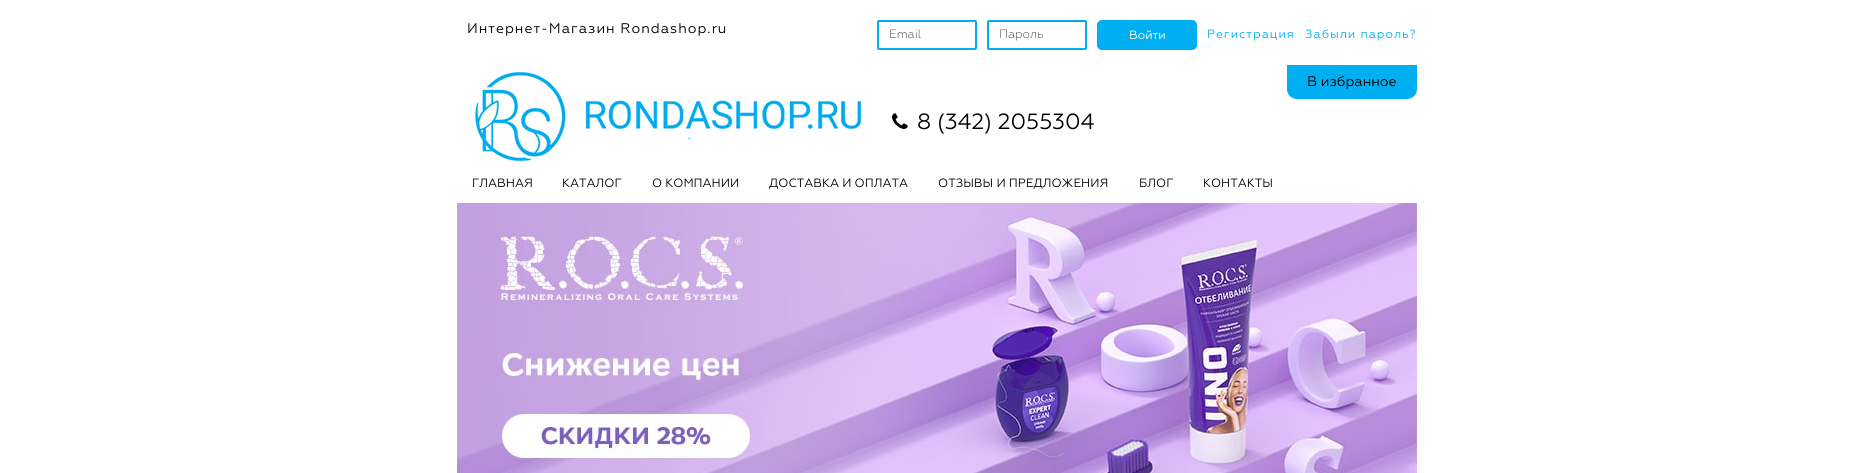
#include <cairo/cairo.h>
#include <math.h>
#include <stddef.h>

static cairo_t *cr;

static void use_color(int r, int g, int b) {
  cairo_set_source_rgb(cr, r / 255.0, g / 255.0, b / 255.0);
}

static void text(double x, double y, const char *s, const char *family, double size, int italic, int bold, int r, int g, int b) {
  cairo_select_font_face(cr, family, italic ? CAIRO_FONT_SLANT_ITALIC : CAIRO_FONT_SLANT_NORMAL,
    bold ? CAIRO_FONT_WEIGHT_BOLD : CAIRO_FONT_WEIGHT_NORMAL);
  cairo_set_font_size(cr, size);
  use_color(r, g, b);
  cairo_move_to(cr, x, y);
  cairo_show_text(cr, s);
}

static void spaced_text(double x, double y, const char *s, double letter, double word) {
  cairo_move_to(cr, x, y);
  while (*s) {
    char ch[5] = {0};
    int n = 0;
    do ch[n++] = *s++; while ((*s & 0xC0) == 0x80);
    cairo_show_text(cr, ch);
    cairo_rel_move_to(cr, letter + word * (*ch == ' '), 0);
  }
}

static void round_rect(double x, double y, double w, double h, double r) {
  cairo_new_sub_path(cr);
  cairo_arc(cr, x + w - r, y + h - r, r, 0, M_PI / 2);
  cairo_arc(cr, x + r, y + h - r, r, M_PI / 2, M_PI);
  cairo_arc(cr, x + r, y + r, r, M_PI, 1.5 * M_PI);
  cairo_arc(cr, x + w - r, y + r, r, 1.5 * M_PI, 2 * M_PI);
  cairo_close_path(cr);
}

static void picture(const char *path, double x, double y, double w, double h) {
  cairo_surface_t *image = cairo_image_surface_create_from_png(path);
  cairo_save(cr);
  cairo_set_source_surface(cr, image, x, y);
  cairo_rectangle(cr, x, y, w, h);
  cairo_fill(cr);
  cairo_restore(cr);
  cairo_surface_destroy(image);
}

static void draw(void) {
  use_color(255, 255, 255);
  cairo_paint(cr);
  round_rect(878, 21, 98, 28, 1);
  use_color(0, 175, 242);
  cairo_stroke(cr);
  round_rect(988, 21, 98, 28, 1);
  cairo_stroke(cr);
  round_rect(1097.5, 20.5, 99, 29, 4.5);
  cairo_fill_preserve(cr);
  cairo_set_line_width(cr, 1);
  cairo_stroke(cr);
  picture("img_01.png", 475, 72, 387, 89);
  cairo_new_path(cr);
  cairo_move_to(cr, 1287, 65);
  cairo_line_to(cr, 1417, 65);
  cairo_line_to(cr, 1417, 89);
  cairo_curve_to(cr, 1417, 94.5, 1412.5, 99, 1407, 99);
  cairo_line_to(cr, 1297, 99);
  cairo_curve_to(cr, 1291.5, 99, 1287, 94.5, 1287, 89);
  cairo_close_path(cr);
  cairo_fill(cr);
  picture("img_02.png", 892, 113, 16, 16);
  picture("img_03.png", 457, 203, 960, 270);
  cairo_select_font_face(cr, "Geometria", CAIRO_FONT_SLANT_NORMAL, CAIRO_FONT_WEIGHT_NORMAL);
  cairo_set_font_size(cr, 14);
  use_color(0, 0, 0);
  spaced_text(467, 33, "Интернет-Магазин Rondashop.ru", 1, 0);
  text(889, 38, "Email", "Geometria Light", 12, 0, 0, 68, 68, 68);
  text(999, 38, "Пароль", "Geometria Light", 12, 0, 0, 68, 68, 68);
  text(1129, 39, "Войти", "Geometria", 12, 0, 0, 255, 255, 255);
  use_color(0, 175, 242);
  spaced_text(1207, 38, "Регистрация", 1, 0);
  spaced_text(1305, 38, "Забыли пароль?", 1, 0);
  text(1307, 86, "В избранное", "Geometria", 14, 0, 0, 0, 0, 0);
  text(917, 129, "8 (342) 2055304", "Geometria", 22, 0, 0, 0, 0, 0);
  text(472, 187, "ГЛАВНАЯ", "Geometria", 12, 0, 0, 0, 0, 0);
  text(562, 187, "КАТАЛОГ", "Geometria", 12, 0, 0, 0, 0, 0);
  text(652, 187, "О КОМПАНИИ", "Geometria", 12, 0, 0, 0, 0, 0);
  text(769, 187, "ДОСТАВКА И ОПЛАТА", "Geometria", 12, 0, 0, 0, 0, 0);
  text(938, 187, "ОТЗЫВЫ И ПРЕДЛОЖЕНИЯ", "Geometria", 12, 0, 0, 0, 0, 0);
  text(1139, 187, "БЛОГ", "Geometria", 12, 0, 0, 0, 0, 0);
  text(1203, 187, "КОНТАКТЫ", "Geometria", 12, 0, 0, 0, 0, 0);
}

int main(void) {
  cairo_surface_t *surface = cairo_image_surface_create(CAIRO_FORMAT_RGB24, 1873, 473);
  cr = cairo_create(surface);
  cairo_font_options_t *options = cairo_font_options_create();
  cairo_font_options_set_hint_metrics(options, CAIRO_HINT_METRICS_OFF);
  cairo_font_options_set_hint_style(options, CAIRO_HINT_STYLE_NONE);
  cairo_set_font_options(cr, options);
  cairo_set_miter_limit(cr, 4);
  draw();
  cairo_surface_write_to_png(surface, "out.png");
  cairo_font_options_destroy(options);
  cairo_destroy(cr);
  cairo_surface_destroy(surface);
  return 0;
}
